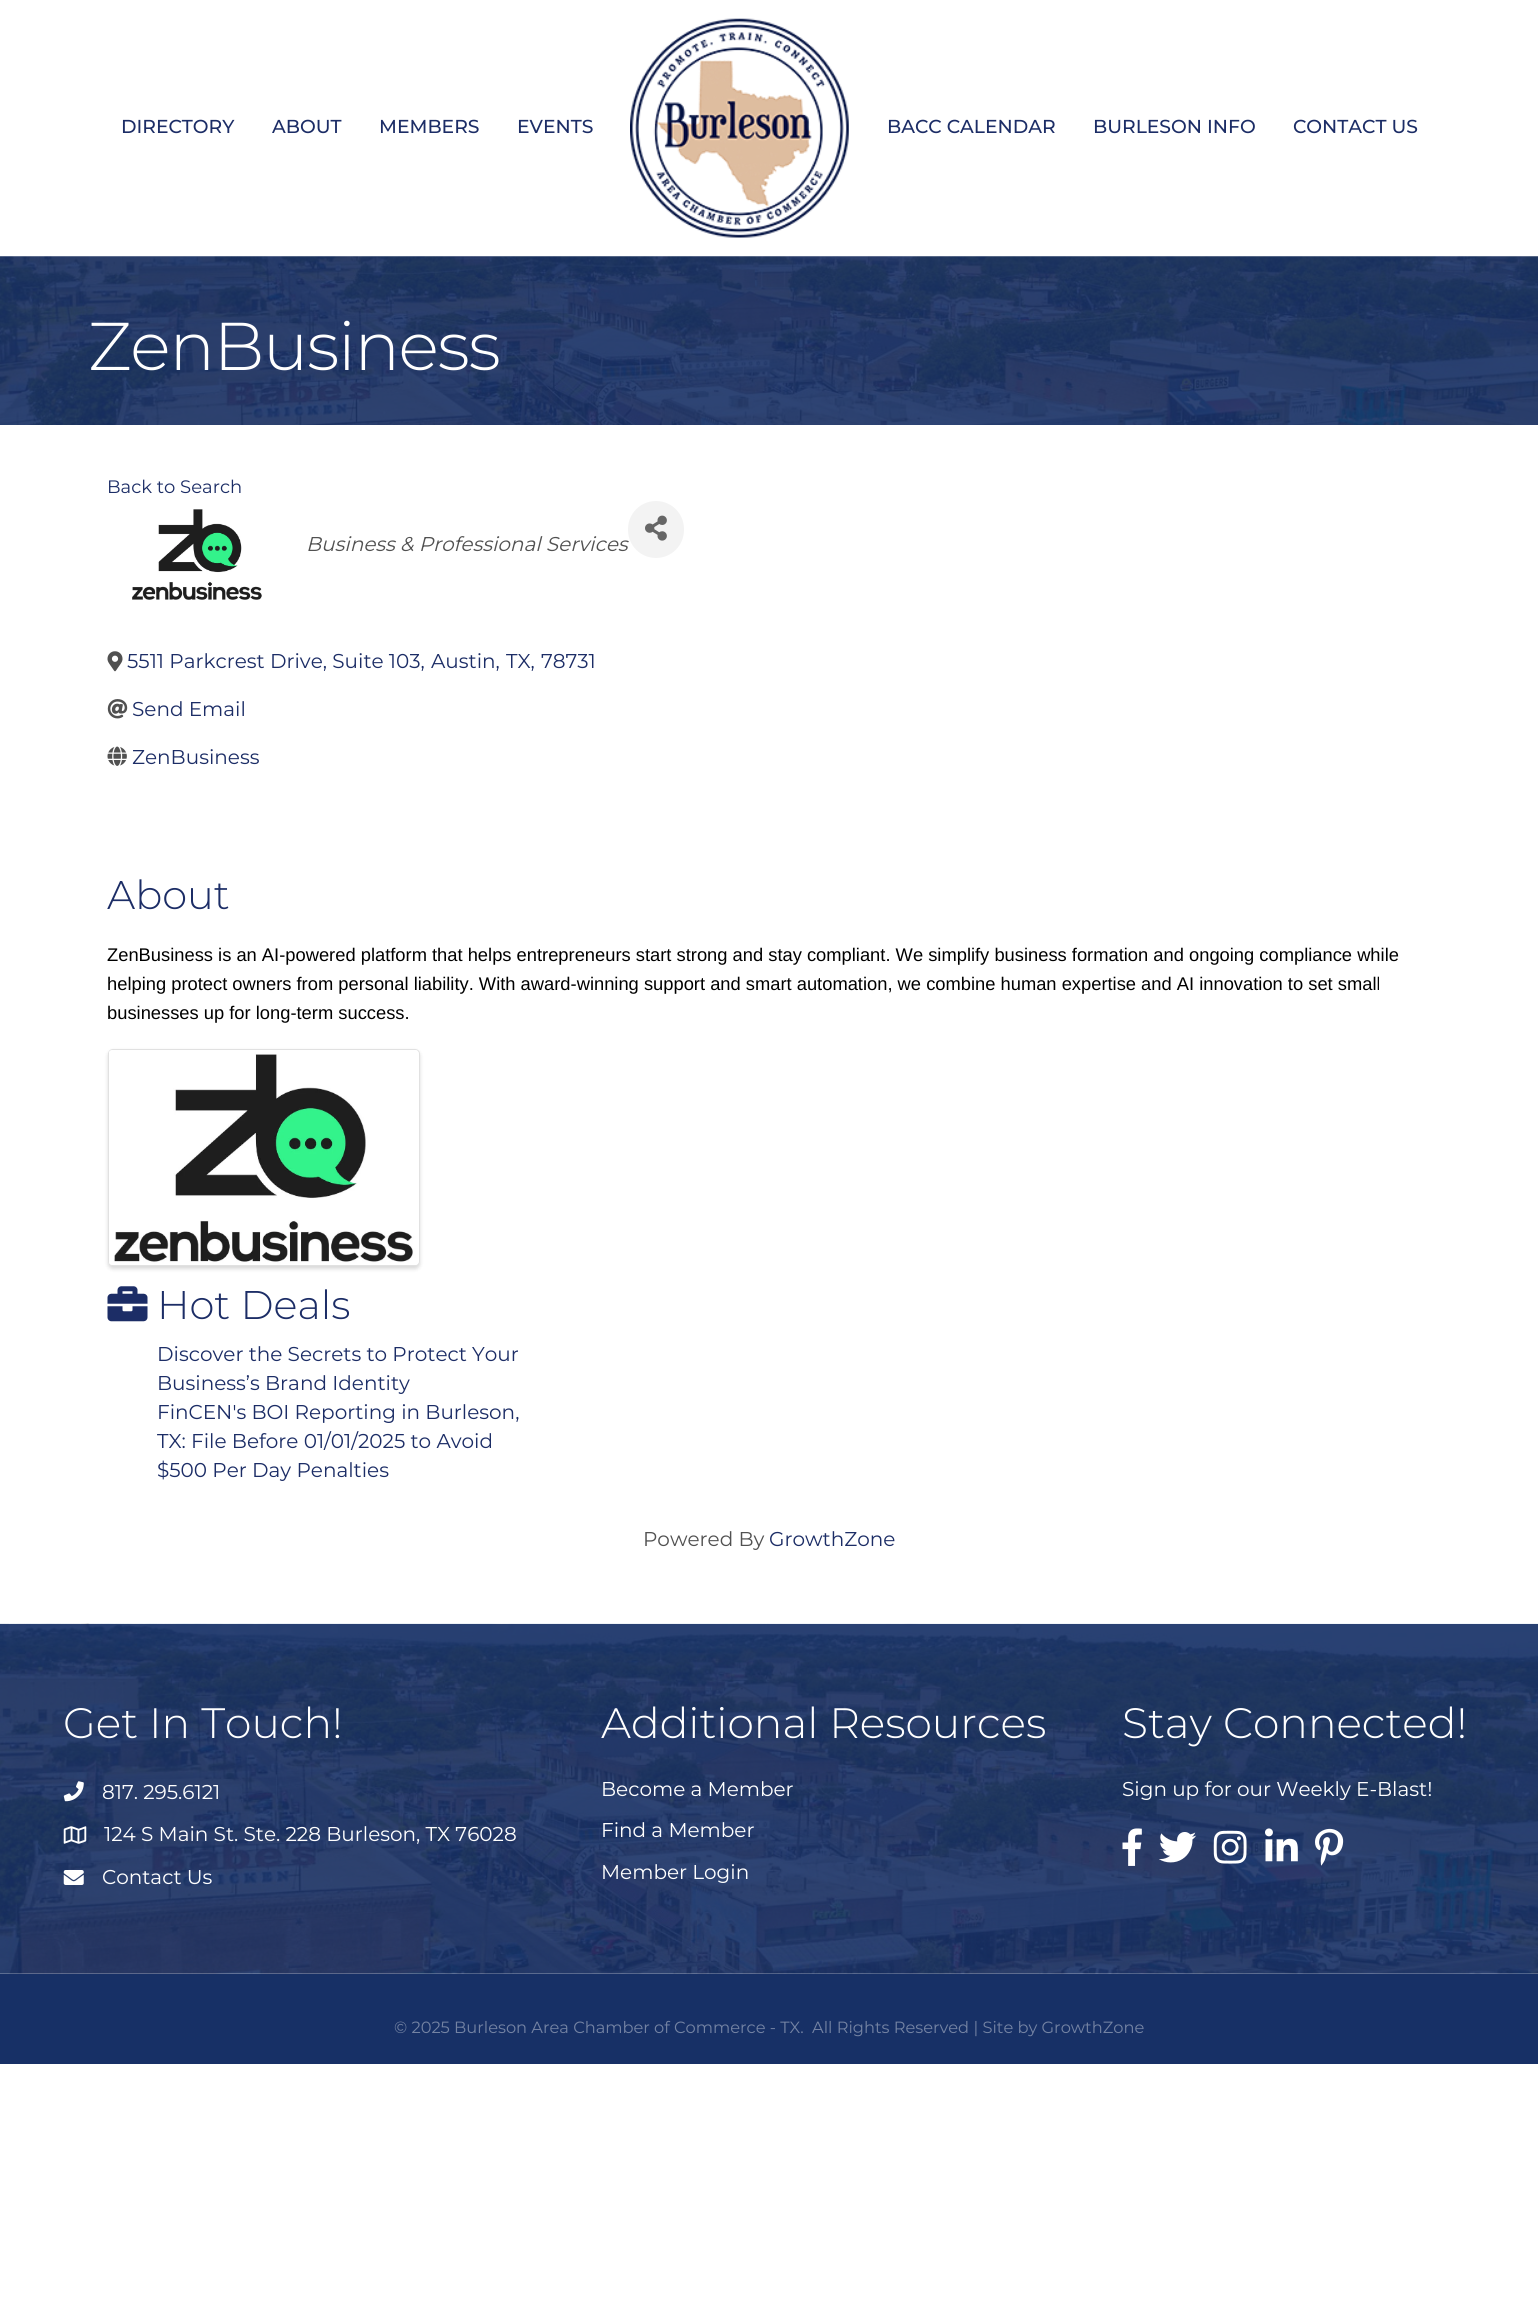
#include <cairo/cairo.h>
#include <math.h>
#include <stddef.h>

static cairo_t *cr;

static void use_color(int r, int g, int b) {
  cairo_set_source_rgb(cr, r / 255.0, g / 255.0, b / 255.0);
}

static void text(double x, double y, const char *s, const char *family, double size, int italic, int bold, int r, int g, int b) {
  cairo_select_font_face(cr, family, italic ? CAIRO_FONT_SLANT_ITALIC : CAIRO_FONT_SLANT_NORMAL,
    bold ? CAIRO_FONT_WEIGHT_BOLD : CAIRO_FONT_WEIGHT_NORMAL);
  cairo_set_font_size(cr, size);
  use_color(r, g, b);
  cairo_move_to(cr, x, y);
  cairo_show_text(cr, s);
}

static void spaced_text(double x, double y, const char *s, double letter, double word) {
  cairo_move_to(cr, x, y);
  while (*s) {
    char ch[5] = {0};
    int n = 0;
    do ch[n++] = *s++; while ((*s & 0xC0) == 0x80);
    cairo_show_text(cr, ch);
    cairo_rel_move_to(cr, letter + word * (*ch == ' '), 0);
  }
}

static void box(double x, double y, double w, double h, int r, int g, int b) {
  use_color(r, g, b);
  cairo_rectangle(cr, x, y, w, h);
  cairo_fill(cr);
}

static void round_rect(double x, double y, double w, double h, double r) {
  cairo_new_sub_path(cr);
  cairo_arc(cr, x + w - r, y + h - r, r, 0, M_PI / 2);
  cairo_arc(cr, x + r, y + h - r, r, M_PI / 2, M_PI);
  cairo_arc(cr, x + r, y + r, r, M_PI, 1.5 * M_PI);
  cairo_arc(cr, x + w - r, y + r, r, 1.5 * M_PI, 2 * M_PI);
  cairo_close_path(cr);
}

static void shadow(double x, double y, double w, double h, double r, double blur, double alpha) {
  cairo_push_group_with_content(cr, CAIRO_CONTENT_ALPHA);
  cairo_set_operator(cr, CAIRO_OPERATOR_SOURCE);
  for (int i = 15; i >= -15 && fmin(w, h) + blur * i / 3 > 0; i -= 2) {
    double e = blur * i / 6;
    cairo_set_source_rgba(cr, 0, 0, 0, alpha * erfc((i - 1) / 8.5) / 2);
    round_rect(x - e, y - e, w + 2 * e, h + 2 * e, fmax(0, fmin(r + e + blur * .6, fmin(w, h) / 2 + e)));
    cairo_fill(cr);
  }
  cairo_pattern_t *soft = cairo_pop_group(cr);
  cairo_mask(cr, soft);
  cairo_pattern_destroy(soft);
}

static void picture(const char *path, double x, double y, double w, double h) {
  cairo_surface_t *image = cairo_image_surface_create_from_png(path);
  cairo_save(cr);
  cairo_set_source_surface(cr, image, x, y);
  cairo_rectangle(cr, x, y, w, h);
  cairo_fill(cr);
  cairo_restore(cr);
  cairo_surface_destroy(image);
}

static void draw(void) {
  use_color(255, 255, 255);
  cairo_paint(cr);
  picture("img_01.png", 630, 18, 219, 220);
  picture("img_02.png", 0, 256, 1538, 169);
  picture("img_03.png", 132, 509, 130, 91);
  picture("img_05.png", 107, 651, 16, 21);
  picture("img_06.png", 107, 699, 21, 20);
  picture("img_07.png", 107, 746, 20, 20);
  use_color(0, 0, 0);
  shadow(108, 1051, 312, 218, 5, 2, 0.15);
  use_color(255, 255, 255);
  round_rect(108, 1049, 312, 217, 5);
  cairo_fill(cr);
  round_rect(108.5, 1049.5, 311, 216, 4.5);
  cairo_set_source_rgba(cr, 0, 0, 0, 0.12);
  cairo_set_line_width(cr, 1);
  cairo_stroke(cr);
  picture("img_08.png", 109, 1050, 310, 215);
  picture("img_09.png", 107, 1286, 41, 36);
  picture("img_10.png", 0, 1623, 1538, 351);
  picture("img_11.png", 63, 1781, 21, 21);
  picture("img_12.png", 63, 1826, 24, 18);
  picture("img_13.png", 63, 1870, 21, 15);
  picture("img_14.png", 1122, 1828, 20, 38);
  picture("img_15.png", 1159, 1832, 38, 31);
  picture("img_16.png", 1213, 1830, 34, 34);
  picture("img_17.png", 1265, 1828, 33, 34);
  picture("img_18.png", 1315, 1828, 29, 38);
  box(0, 1974, 1538, 90, 23, 48, 102);
  text(121, 133, "DIRECTORY", "Montserrat Medium", 18.75, 0, 0, 28, 45, 102);
  text(272, 133, "ABOUT", "Montserrat Medium", 18.75, 0, 0, 28, 45, 102);
  text(379, 133, "MEMBERS", "Montserrat Medium", 18.75, 0, 0, 28, 45, 102);
  text(517, 133, "EVENTS", "Montserrat Medium", 18.75, 0, 0, 28, 45, 102);
  text(887, 133, "BACC CALENDAR", "Montserrat Medium", 18.75, 0, 0, 28, 45, 102);
  text(1093, 133, "BURLESON INFO", "Montserrat Medium", 18.75, 0, 0, 28, 45, 102);
  text(1293, 133, "CONTACT US", "Montserrat Medium", 18.75, 0, 0, 28, 45, 102);
  cairo_select_font_face(cr, "Montserrat Light", CAIRO_FONT_SLANT_NORMAL, CAIRO_FONT_WEIGHT_NORMAL);
  cairo_set_font_size(cr, 67.5);
  use_color(255, 255, 255);
  spaced_text(88, 370, "ZenBusiness", -1.25, 0);
  text(107, 493, "Back to Search", "Montserrat", 18, 0, 0, 28, 45, 102);
  text(306, 551, "Business & Professional Services", "Montserrat", 20, 1, 0, 81, 81, 81);
  use_color(243, 243, 243);
  round_rect(628, 501, 56, 57, 28);
  cairo_fill(cr);
  picture("img_04.png", 645, 515, 22, 26);
  text(127, 668, "5511 Parkcrest Drive, Suite 103,", "Montserrat", 20, 0, 0, 28, 45, 102);
  text(431, 668, "Austin,", "Montserrat", 20, 0, 0, 28, 45, 102);
  text(506, 668, "TX,", "Montserrat", 20, 0, 0, 28, 45, 102);
  text(541, 668, "78731", "Montserrat", 20, 0, 0, 28, 45, 102);
  text(132, 716, "Send Email", "Montserrat", 20, 0, 0, 28, 45, 102);
  text(132, 764, "ZenBusiness", "Montserrat", 20, 0, 0, 28, 45, 102);
  text(107, 909, "About", "Montserrat Light", 40, 0, 0, 28, 45, 102);
  text(107, 961, "ZenBusiness is an AI-powered platform that helps entrepreneurs start strong and stay compliant. We simplify business formation and ongoing compliance while", "Liberation Sans", 18.33, 0, 0, 0, 0, 0);
  text(107, 990, "helping protect owners from personal liability. With award-winning support and smart automation, we combine human expertise and AI innovation to set small", "Liberation Sans", 18.33, 0, 0, 0, 0, 0);
  text(107, 1019, "businesses up for long-term success.", "Liberation Sans", 18.33, 0, 0, 0, 0, 0);
  text(157, 1319, "Hot Deals", "Montserrat Light", 40, 0, 0, 28, 45, 102);
  text(157, 1361, "Discover the Secrets to Protect Your", "Montserrat", 20, 0, 0, 28, 45, 102);
  text(157, 1390, "Business’s Brand Identity", "Montserrat", 20, 0, 0, 28, 45, 102);
  text(157, 1419, "FinCEN's BOI Reporting in Burleson,", "Montserrat", 20, 0, 0, 28, 45, 102);
  text(157, 1448, "TX: File Before 01/01/2025 to Avoid", "Montserrat", 20, 0, 0, 28, 45, 102);
  text(157, 1477, "$500 Per Day Penalties", "Montserrat", 20, 0, 0, 28, 45, 102);
  text(643, 1546, "Powered By", "Montserrat", 20, 0, 0, 81, 81, 81);
  text(769, 1546, "GrowthZone", "Montserrat", 20, 0, 0, 28, 45, 102);
  text(63, 1738, "Get In Touch!", "Montserrat Light", 42.5, 0, 0, 255, 255, 255);
  text(102, 1799, "817. 295.6121", "Montserrat", 20, 0, 0, 255, 255, 255);
  text(104, 1841, "124 S Main St. Ste. 228 Burleson, TX 76028", "Montserrat", 20, 0, 0, 255, 255, 255);
  text(102, 1884, "Contact Us", "Montserrat", 20, 0, 0, 255, 255, 255);
  text(601, 1738, "Additional Resources", "Montserrat Light", 42.5, 0, 0, 255, 255, 255);
  text(601, 1796, "Become a Member", "Montserrat", 20, 0, 0, 255, 255, 255);
  text(601, 1837, "Find a Member", "Montserrat", 20, 0, 0, 255, 255, 255);
  text(601, 1879, "Member Login", "Montserrat", 20, 0, 0, 255, 255, 255);
  text(1122, 1738, "Stay Connected!", "Montserrat Light", 42.5, 0, 0, 255, 255, 255);
  text(1122, 1796, "Sign up for our Weekly E-Blast!", "Montserrat", 20, 0, 0, 255, 255, 255);
  text(394, 2033, "© 2025 Burleson Area Chamber of Commerce - TX.", "Montserrat", 16.25, 0, 0, 116, 131, 163);
  text(812, 2033, "All Rights Reserved | Site by GrowthZone", "Montserrat", 16.25, 0, 0, 116, 131, 163);
}

int main(void) {
  cairo_surface_t *surface = cairo_image_surface_create(CAIRO_FORMAT_RGB24, 1538, 2313);
  cr = cairo_create(surface);
  cairo_font_options_t *options = cairo_font_options_create();
  cairo_font_options_set_hint_metrics(options, CAIRO_HINT_METRICS_OFF);
  cairo_font_options_set_hint_style(options, CAIRO_HINT_STYLE_NONE);
  cairo_set_font_options(cr, options);
  cairo_set_miter_limit(cr, 4);
  draw();
  cairo_surface_write_to_png(surface, "out.png");
  cairo_font_options_destroy(options);
  cairo_destroy(cr);
  cairo_surface_destroy(surface);
  return 0;
}
